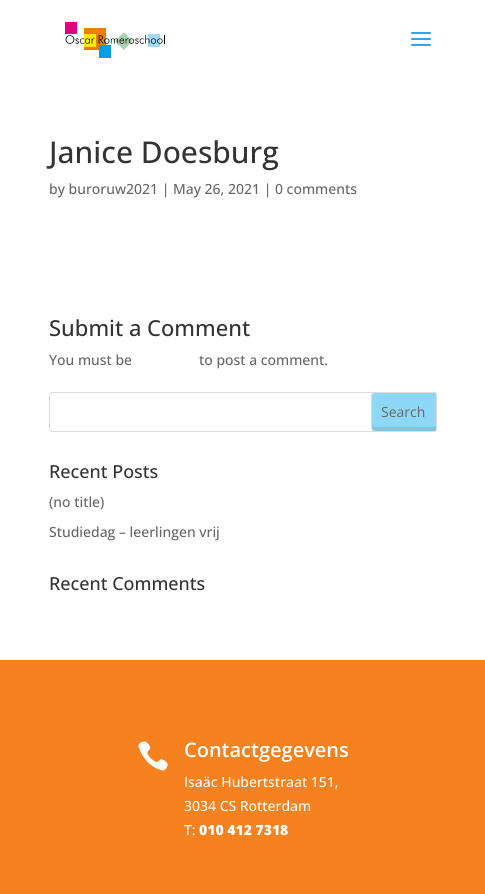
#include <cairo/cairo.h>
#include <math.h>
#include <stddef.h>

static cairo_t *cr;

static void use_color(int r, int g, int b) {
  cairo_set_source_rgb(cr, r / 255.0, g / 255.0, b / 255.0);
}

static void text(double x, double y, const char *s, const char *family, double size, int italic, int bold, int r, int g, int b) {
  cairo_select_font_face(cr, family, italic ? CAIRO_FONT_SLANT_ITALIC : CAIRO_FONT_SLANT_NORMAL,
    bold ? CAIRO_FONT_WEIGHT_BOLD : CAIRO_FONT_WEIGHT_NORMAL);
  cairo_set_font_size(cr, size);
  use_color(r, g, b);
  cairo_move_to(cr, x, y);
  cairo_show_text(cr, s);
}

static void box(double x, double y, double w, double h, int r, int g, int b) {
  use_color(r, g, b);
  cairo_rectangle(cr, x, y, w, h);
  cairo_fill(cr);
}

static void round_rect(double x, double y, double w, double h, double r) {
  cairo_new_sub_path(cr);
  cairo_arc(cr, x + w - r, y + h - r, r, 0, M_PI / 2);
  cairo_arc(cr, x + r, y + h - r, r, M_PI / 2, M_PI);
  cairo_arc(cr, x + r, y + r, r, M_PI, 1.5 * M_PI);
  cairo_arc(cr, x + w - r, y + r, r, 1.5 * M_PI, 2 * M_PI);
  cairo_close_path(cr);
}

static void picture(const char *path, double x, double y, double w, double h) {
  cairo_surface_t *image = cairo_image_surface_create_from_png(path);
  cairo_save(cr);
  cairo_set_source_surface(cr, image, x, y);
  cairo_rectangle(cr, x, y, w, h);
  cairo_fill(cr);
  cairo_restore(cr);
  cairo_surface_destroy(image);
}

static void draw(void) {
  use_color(255, 255, 255);
  cairo_paint(cr);
  picture("img_01.png", 65, 22, 100, 36);
  picture("img_02.png", 411, 32, 20, 14);
  round_rect(49.5, 392.5, 387, 39, 2.5);
  use_color(221, 221, 221);
  cairo_set_line_width(cr, 1);
  cairo_stroke(cr);
  use_color(142, 216, 247);
  cairo_new_path(cr);
  cairo_move_to(cr, 376, 392);
  cairo_line_to(cr, 434, 392);
  cairo_curve_to(cr, 435.5, 392, 437, 393.5, 437, 395);
  cairo_line_to(cr, 437, 429);
  cairo_curve_to(cr, 437, 430.5, 435.5, 432, 434, 432);
  cairo_line_to(cr, 376, 432);
  cairo_curve_to(cr, 373, 432, 371, 430, 371, 427);
  cairo_line_to(cr, 371, 397);
  cairo_curve_to(cr, 371, 394, 373, 392, 376, 392);
  cairo_close_path(cr);
  cairo_fill(cr);
  use_color(129, 197, 225);
  cairo_new_path(cr);
  cairo_move_to(cr, 372, 423);
  cairo_curve_to(cr, 372, 433, 375, 431, 386, 431);
  cairo_line_to(cr, 424, 431);
  cairo_curve_to(cr, 435, 431, 436, 434, 436, 425);
  cairo_curve_to(cr, 436, 426, 435, 427, 434, 427);
  cairo_line_to(cr, 376, 427);
  cairo_curve_to(cr, 374, 427, 372, 425, 372, 423);
  cairo_close_path(cr);
  cairo_fill(cr);
  cairo_new_path(cr);
  cairo_move_to(cr, 376, 392.5);
  cairo_line_to(cr, 434, 392.5);
  cairo_curve_to(cr, 435.5, 392.5, 436.5, 393.5, 436.5, 395);
  cairo_line_to(cr, 436.5, 429);
  cairo_curve_to(cr, 436.5, 430.5, 435.5, 431.5, 434, 431.5);
  cairo_line_to(cr, 376, 431.5);
  cairo_curve_to(cr, 373.5, 431.5, 371.5, 429.5, 371.5, 427);
  cairo_line_to(cr, 371.5, 397);
  cairo_curve_to(cr, 371.5, 394.5, 373.5, 392.5, 376, 392.5);
  cairo_close_path(cr);
  use_color(221, 221, 221);
  cairo_stroke(cr);
  box(0, 660, 485, 234, 245, 130, 31);
  picture("img_03.png", 138, 741, 30, 30);
  text(49, 163, "Janice Doesburg", "Open Sans Medium", 30, 0, 0, 51, 51, 51);
  text(49, 194, "by buroruw2021 | May 26, 2021 | 0 comments", "Open Sans Medium", 14, 0, 0, 102, 102, 102);
  text(49, 336, "Submit a Comment", "Open Sans Medium", 22, 0, 0, 51, 51, 51);
  text(49, 365, "You must be", "Open Sans Medium", 14, 0, 0, 102, 102, 102);
  text(199, 365, "to post a comment.", "Open Sans Medium", 14, 0, 0, 102, 102, 102);
  text(381, 417, "Search", "Open Sans", 14, 0, 0, 102, 102, 102);
  text(49, 478, "Recent Posts", "Open Sans Medium", 18, 0, 0, 51, 51, 51);
  text(49, 507, "(no title)", "Open Sans Medium", 14, 0, 0, 102, 102, 102);
  text(49, 537, "Studiedag – leerlingen vrij", "Open Sans Medium", 14, 0, 0, 102, 102, 102);
  text(49, 590, "Recent Comments", "Open Sans Medium", 18, 0, 0, 51, 51, 51);
  text(184, 757, "Contactgegevens", "Open Sans SemiBold", 20, 0, 0, 255, 255, 255);
  text(184, 787, "Isaäc Hubertstraat 151,", "Open Sans Medium", 14, 0, 0, 255, 255, 255);
  text(184, 811, "3034 CS Rotterdam", "Open Sans Medium", 14, 0, 0, 255, 255, 255);
  text(184, 835, "T:", "Open Sans Medium", 14, 0, 0, 255, 255, 255);
  text(199, 835, "010 412 7318", "Open Sans ExtraBold", 14, 0, 0, 255, 255, 255);
}

int main(void) {
  cairo_surface_t *surface = cairo_image_surface_create(CAIRO_FORMAT_RGB24, 485, 894);
  cr = cairo_create(surface);
  cairo_font_options_t *options = cairo_font_options_create();
  cairo_font_options_set_hint_metrics(options, CAIRO_HINT_METRICS_OFF);
  cairo_font_options_set_hint_style(options, CAIRO_HINT_STYLE_NONE);
  cairo_set_font_options(cr, options);
  cairo_set_miter_limit(cr, 4);
  draw();
  cairo_surface_write_to_png(surface, "out.png");
  cairo_font_options_destroy(options);
  cairo_destroy(cr);
  cairo_surface_destroy(surface);
  return 0;
}
